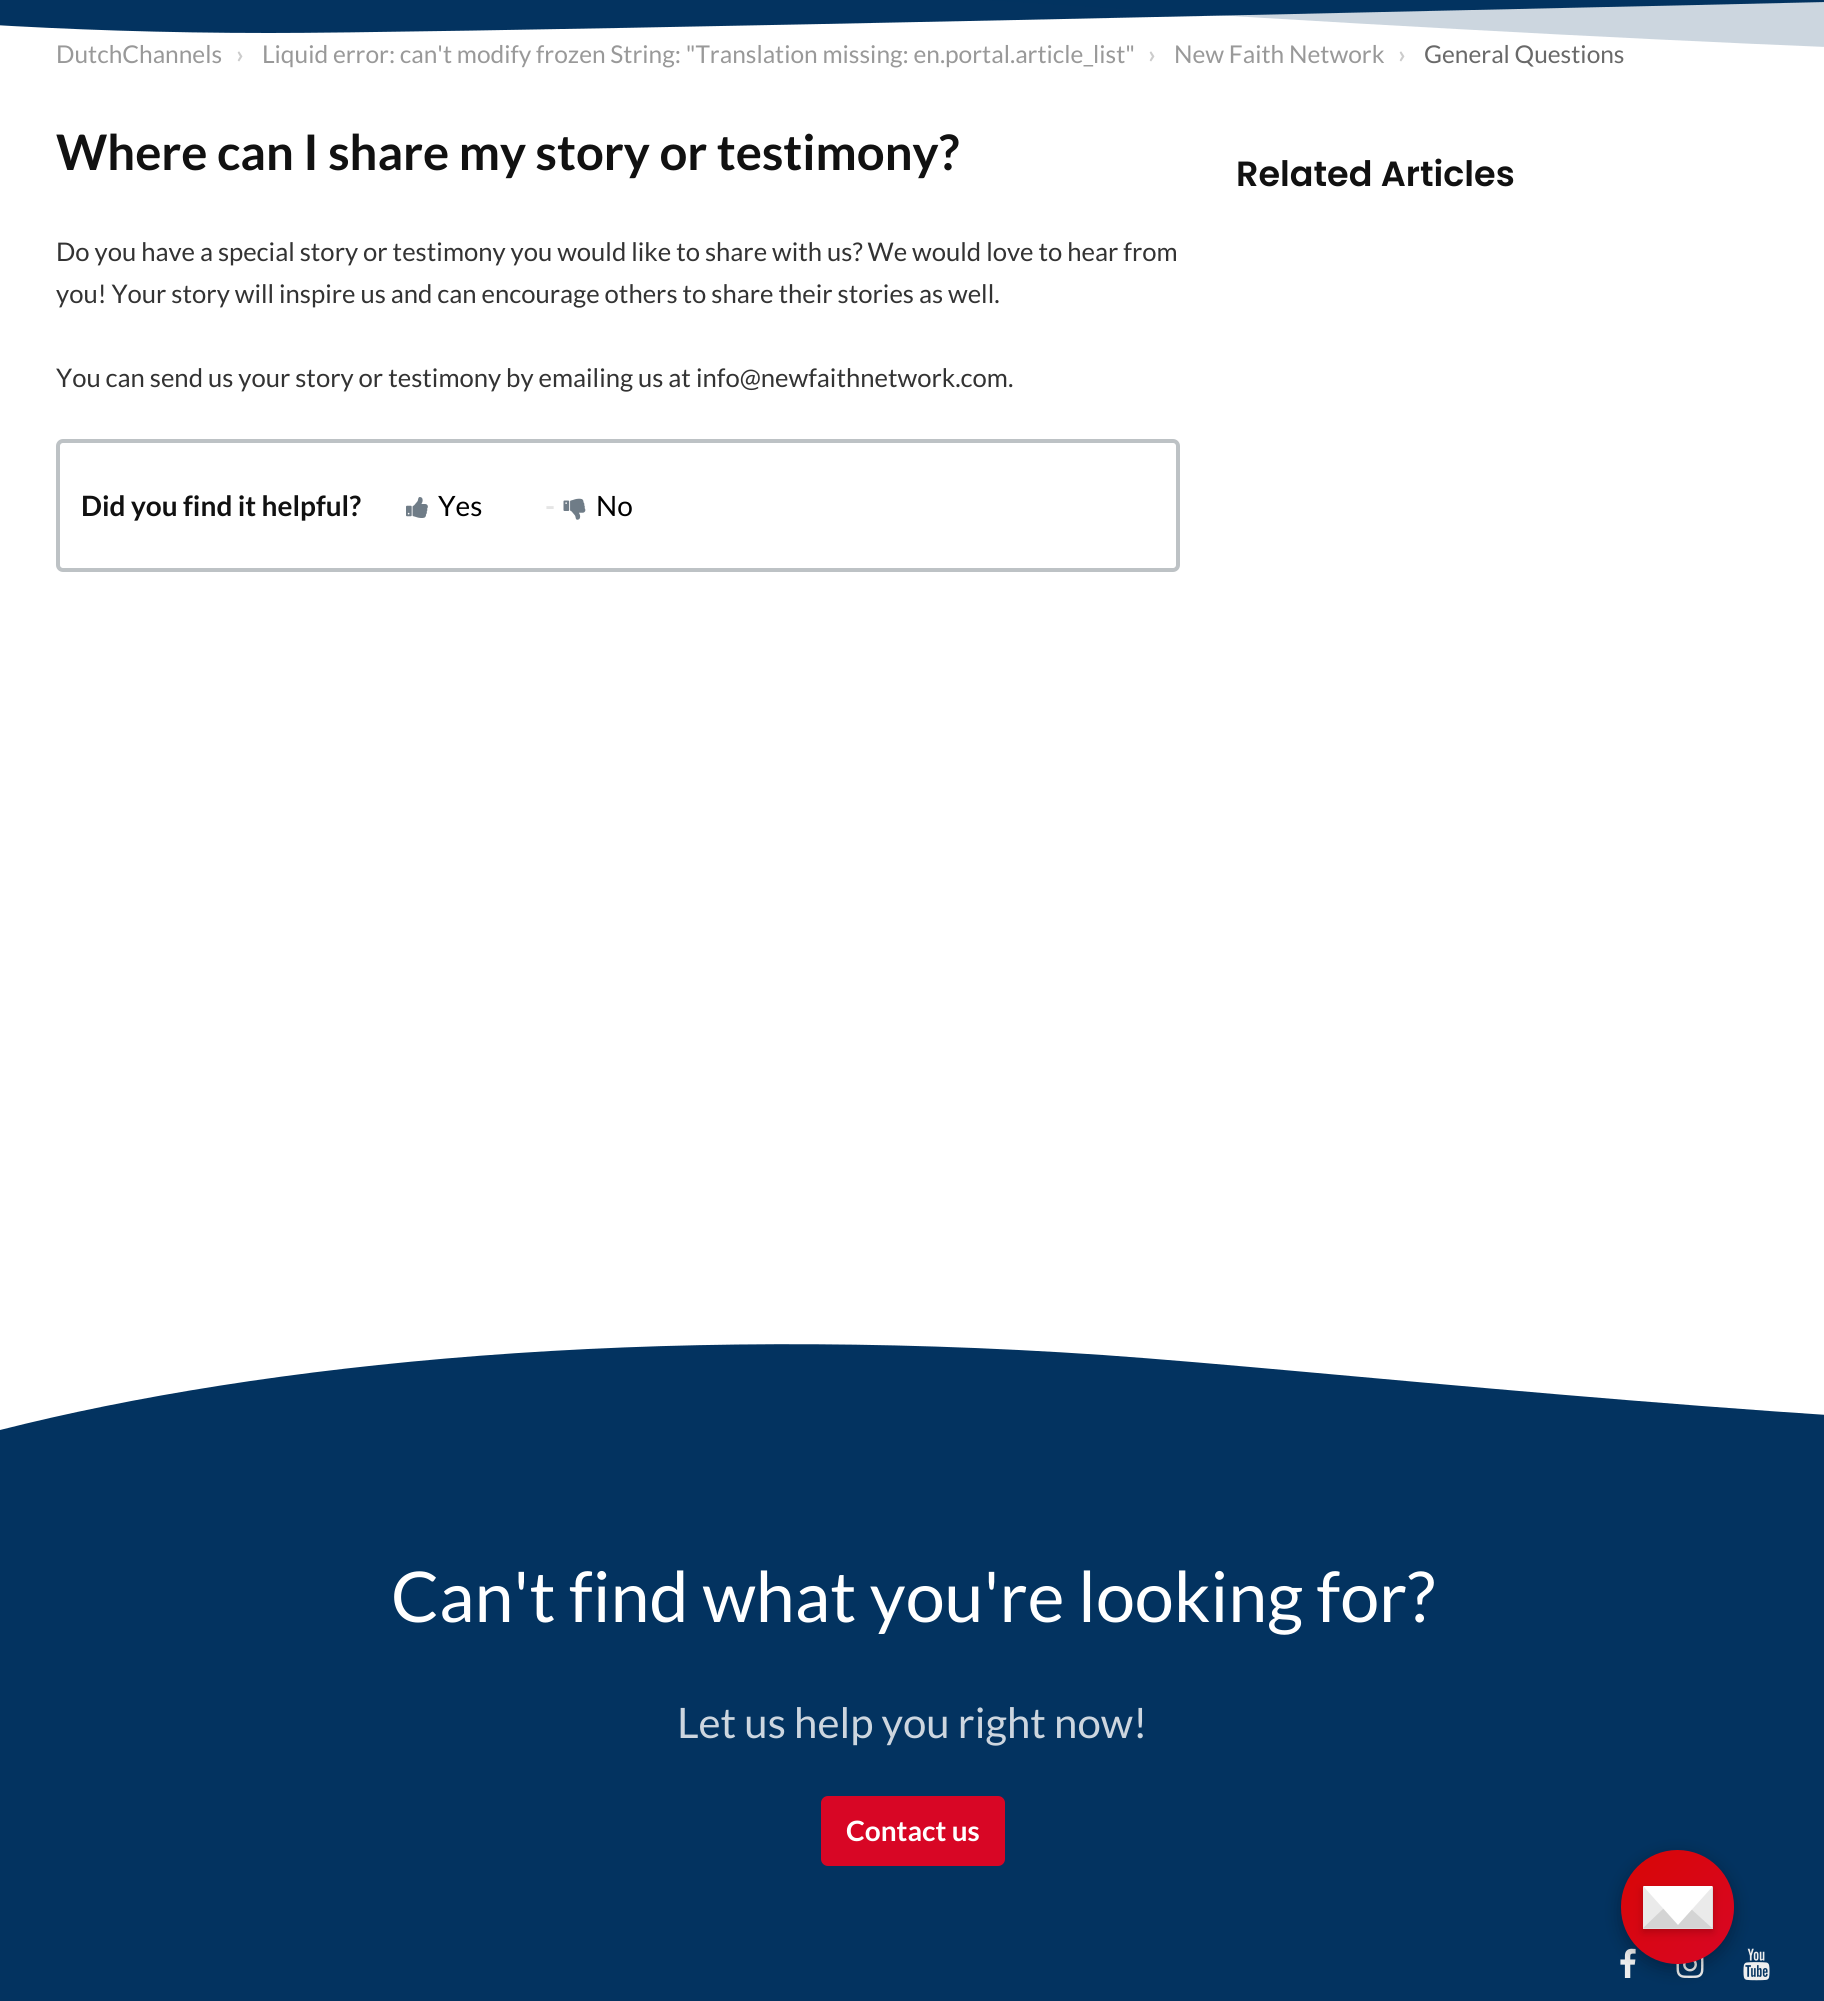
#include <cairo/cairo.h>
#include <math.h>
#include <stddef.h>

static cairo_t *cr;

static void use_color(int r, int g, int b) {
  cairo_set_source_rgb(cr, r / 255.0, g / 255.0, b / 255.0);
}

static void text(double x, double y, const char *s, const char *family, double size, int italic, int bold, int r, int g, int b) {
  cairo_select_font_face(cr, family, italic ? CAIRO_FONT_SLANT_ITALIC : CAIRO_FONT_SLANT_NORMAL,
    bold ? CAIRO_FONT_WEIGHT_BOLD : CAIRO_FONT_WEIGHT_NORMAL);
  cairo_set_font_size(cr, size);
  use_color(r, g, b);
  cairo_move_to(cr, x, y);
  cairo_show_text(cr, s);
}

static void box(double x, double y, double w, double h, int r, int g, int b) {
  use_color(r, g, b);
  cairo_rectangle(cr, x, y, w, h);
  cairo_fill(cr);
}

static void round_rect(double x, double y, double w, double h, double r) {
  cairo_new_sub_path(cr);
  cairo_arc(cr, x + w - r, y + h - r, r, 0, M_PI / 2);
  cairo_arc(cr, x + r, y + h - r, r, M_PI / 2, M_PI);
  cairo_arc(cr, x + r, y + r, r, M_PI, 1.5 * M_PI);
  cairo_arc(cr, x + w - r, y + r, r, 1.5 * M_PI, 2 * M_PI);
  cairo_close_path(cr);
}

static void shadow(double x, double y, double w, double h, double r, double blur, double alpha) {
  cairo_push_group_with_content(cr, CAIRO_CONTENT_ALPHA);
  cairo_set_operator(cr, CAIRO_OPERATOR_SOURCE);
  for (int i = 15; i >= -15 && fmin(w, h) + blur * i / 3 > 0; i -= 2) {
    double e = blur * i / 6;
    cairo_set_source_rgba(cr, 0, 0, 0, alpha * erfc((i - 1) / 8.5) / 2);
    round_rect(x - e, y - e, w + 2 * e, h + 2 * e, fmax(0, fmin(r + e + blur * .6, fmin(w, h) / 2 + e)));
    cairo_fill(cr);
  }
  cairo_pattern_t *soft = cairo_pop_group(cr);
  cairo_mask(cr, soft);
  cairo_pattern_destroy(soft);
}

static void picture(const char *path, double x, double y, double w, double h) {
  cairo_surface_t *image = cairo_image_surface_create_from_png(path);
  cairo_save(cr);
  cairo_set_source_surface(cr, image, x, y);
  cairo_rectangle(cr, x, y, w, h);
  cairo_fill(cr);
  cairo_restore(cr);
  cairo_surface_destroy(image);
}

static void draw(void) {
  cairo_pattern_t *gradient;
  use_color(255, 255, 255);
  cairo_paint(cr);
  use_color(3, 51, 96);
  cairo_new_path(cr);
  cairo_move_to(cr, 269, 33);
  cairo_curve_to(cr, 583, 33, 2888, -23, 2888, -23);
  cairo_line_to(cr, -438, -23);
  cairo_curve_to(cr, -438, -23, -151, 33, 269, 33);
  cairo_close_path(cr);
  cairo_fill(cr);
  cairo_set_source_rgba(cr, 0.012, 0.2, 0.376, 0.2);
  cairo_new_path(cr);
  cairo_move_to(cr, 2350, 60);
  cairo_curve_to(cr, 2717, 60, 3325, -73, 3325, -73);
  cairo_line_to(cr, 0, -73);
  cairo_curve_to(cr, 0, -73, 1569, 60, 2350, 60);
  cairo_close_path(cr);
  cairo_fill(cr);
  round_rect(58, 441, 1120, 129, 5);
  use_color(189, 194, 197);
  cairo_set_line_width(cr, 4);
  cairo_stroke(cr);
  picture("img_01.png", 406, 497, 22, 21);
  picture("img_02.png", 563, 498, 23, 22);
  box(0, 1463, 1824, 538, 3, 51, 96);
  cairo_save(cr);
  cairo_rectangle(cr, 0, 1288, 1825, 175);
  cairo_clip(cr);
  cairo_new_path(cr);
  cairo_move_to(cr, 0, 1430);
  cairo_curve_to(cr, 264, 1363, 648, 1324, 1103, 1355);
  cairo_curve_to(cr, 1558, 1387, 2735, 1545, 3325, 1306);
  cairo_line_to(cr, 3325, 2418);
  cairo_line_to(cr, 0, 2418);
  cairo_close_path(cr);
  cairo_fill(cr);
  cairo_restore(cr);
  use_color(216, 6, 37);
  round_rect(821, 1796, 184, 70, 7);
  cairo_fill(cr);
  picture("img_03.png", 1620, 1948, 16, 30);
  picture("img_04.png", 1676, 1957, 28, 21);
  picture("img_05.png", 1743, 1948, 27, 33);
  use_color(0, 0, 0);
  shadow(1621, 1855, 113, 114, 56.5, 9, 0.3);
  gradient = cairo_pattern_create_linear(1621, 1850, 1734, 1964);
  cairo_pattern_add_color_stop_rgba(gradient, 0, 0.847, 0.024, 0.02, 1);
  cairo_pattern_add_color_stop_rgba(gradient, 1, 0.847, 0.024, 0.145, 1);
  cairo_set_source(cr, gradient);
  cairo_pattern_destroy(gradient);
  round_rect(1621, 1850, 113, 114, 56.5);
  cairo_fill(cr);
  use_color(0, 0, 0);
  shadow(1643, 1890, 70, 42, 0, 4.5, 0.2);
  box(1643, 1887, 70, 42, 221, 221, 221);
  use_color(212, 212, 212);
  cairo_new_path(cr);
  cairo_move_to(cr, 1713, 1928);
  cairo_line_to(cr, 1643, 1928);
  cairo_line_to(cr, 1678, 1890);
  cairo_close_path(cr);
  cairo_fill(cr);
  use_color(234, 234, 234);
  cairo_new_path(cr);
  cairo_move_to(cr, 1643, 1928);
  cairo_line_to(cr, 1643, 1886);
  cairo_line_to(cr, 1664, 1908);
  cairo_close_path(cr);
  cairo_fill(cr);
  cairo_new_path(cr);
  cairo_move_to(cr, 1712, 1886);
  cairo_line_to(cr, 1712, 1928);
  cairo_line_to(cr, 1690, 1908);
  cairo_close_path(cr);
  cairo_fill(cr);
  use_color(255, 255, 255);
  cairo_new_path(cr);
  cairo_move_to(cr, 1643, 1886);
  cairo_line_to(cr, 1713, 1886);
  cairo_line_to(cr, 1678, 1925);
  cairo_close_path(cr);
  cairo_fill(cr);
  text(56, 63, "DutchChannels", "Lato", 24.5, 0, 0, 153, 153, 153);
  text(236, 63, "›", "Lato", 24.5, 0, 1, 204, 204, 204);
  text(262, 63, "Liquid error: can't modify frozen String: \"Translation missing: en.portal.article_list\"", "Lato", 24.5, 0, 0, 153, 153, 153);
  text(1148, 63, "›", "Lato", 24.5, 0, 1, 204, 204, 204);
  text(1174, 63, "New Faith Network", "Lato", 24.5, 0, 0, 153, 153, 153);
  text(1398, 63, "›", "Lato", 24.5, 0, 1, 204, 204, 204);
  text(1424, 63, "General Questions", "Lato", 24.5, 0, 0, 105, 105, 105);
  text(56, 170, "Where can I share my story or testimony?", "Lato", 49, 0, 1, 17, 17, 17);
  text(56, 261, "Do you have a special story or testimony you would like to share with us? We would love to hear from", "Lato", 25.65, 0, 0, 51, 51, 51);
  text(56, 303, "you! Your story will inspire us and can encourage others to share their stories as well.", "Lato", 25.65, 0, 0, 51, 51, 51);
  text(56, 387, "You can send us your story or testimony by emailing us at", "Lato", 25.65, 0, 0, 51, 51, 51);
  text(696, 387, "info@newfaithnetwork.com.", "Lato", 25.65, 0, 0, 51, 51, 51);
  text(81, 516, "Did you find it helpful?", "Lato", 28, 0, 1, 17, 17, 17);
  text(438, 516, "Yes", "Lato", 28, 0, 0, 0, 0, 0);
  text(545, 516, "-", "Lato", 28, 0, 1, 229, 229, 229);
  text(596, 516, "No", "Lato", 28, 0, 0, 0, 0, 0);
  text(1236, 186, "Related Articles", "Poppins SemiBold", 35, 0, 0, 17, 17, 17);
  text(391, 1622, "Can't find what you're looking for?", "Lato", 70, 0, 0, 255, 255, 255);
  text(677, 1738, "Let us help you right now!", "Lato", 42, 0, 0, 205, 214, 223);
  text(846, 1841, "Contact us", "Lato", 28, 0, 1, 255, 255, 255);
}

int main(void) {
  cairo_surface_t *surface = cairo_image_surface_create(CAIRO_FORMAT_RGB24, 1824, 2001);
  cr = cairo_create(surface);
  cairo_font_options_t *options = cairo_font_options_create();
  cairo_font_options_set_hint_metrics(options, CAIRO_HINT_METRICS_OFF);
  cairo_font_options_set_hint_style(options, CAIRO_HINT_STYLE_NONE);
  cairo_set_font_options(cr, options);
  cairo_set_miter_limit(cr, 4);
  draw();
  cairo_surface_write_to_png(surface, "out.png");
  cairo_font_options_destroy(options);
  cairo_destroy(cr);
  cairo_surface_destroy(surface);
  return 0;
}
